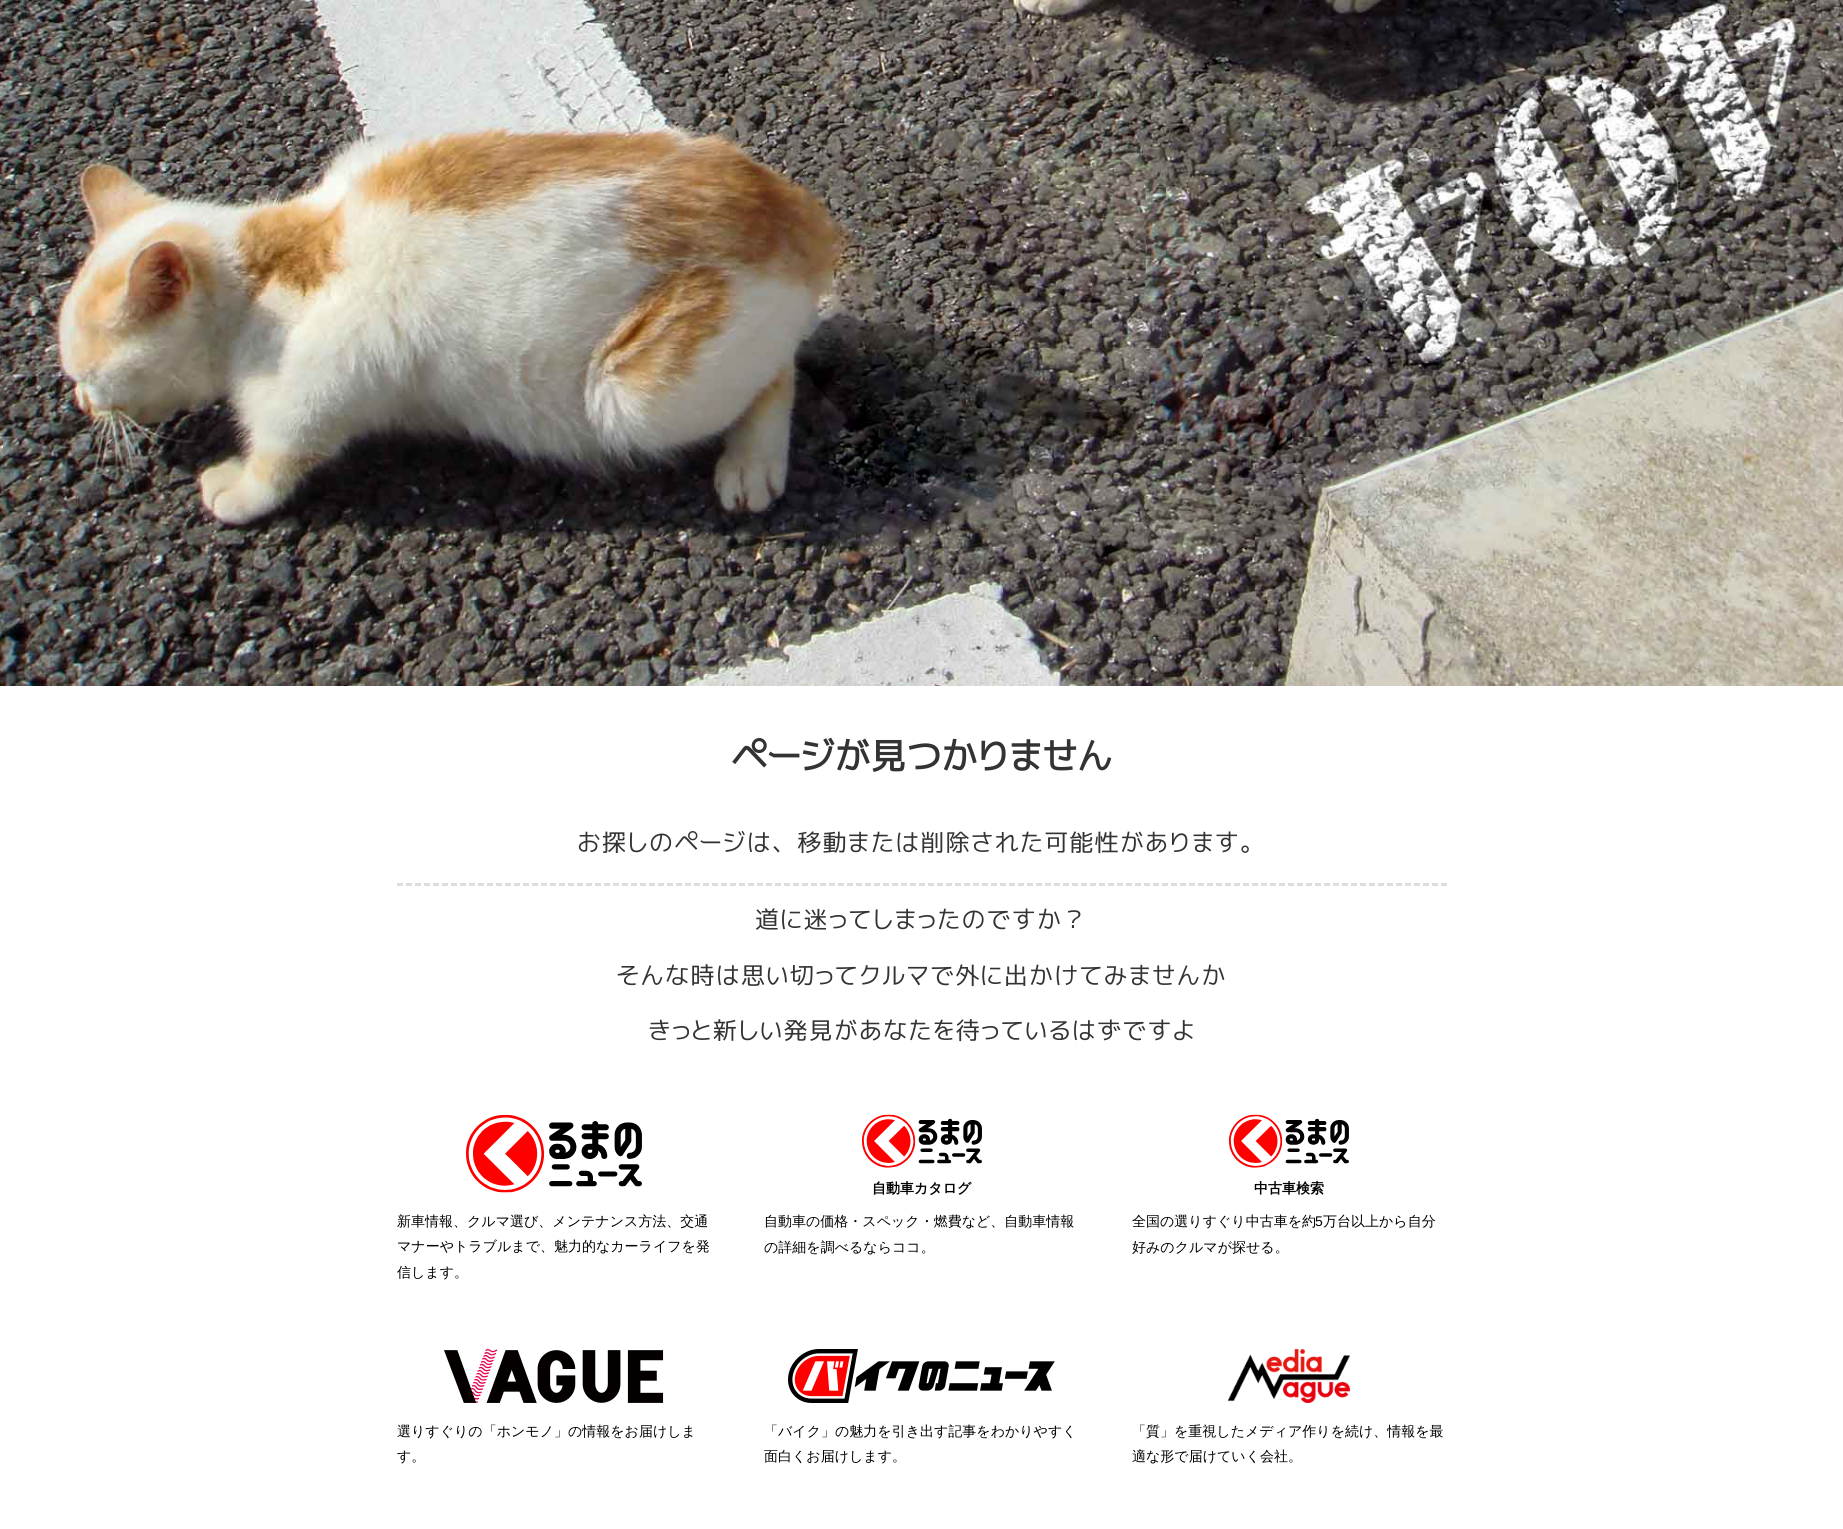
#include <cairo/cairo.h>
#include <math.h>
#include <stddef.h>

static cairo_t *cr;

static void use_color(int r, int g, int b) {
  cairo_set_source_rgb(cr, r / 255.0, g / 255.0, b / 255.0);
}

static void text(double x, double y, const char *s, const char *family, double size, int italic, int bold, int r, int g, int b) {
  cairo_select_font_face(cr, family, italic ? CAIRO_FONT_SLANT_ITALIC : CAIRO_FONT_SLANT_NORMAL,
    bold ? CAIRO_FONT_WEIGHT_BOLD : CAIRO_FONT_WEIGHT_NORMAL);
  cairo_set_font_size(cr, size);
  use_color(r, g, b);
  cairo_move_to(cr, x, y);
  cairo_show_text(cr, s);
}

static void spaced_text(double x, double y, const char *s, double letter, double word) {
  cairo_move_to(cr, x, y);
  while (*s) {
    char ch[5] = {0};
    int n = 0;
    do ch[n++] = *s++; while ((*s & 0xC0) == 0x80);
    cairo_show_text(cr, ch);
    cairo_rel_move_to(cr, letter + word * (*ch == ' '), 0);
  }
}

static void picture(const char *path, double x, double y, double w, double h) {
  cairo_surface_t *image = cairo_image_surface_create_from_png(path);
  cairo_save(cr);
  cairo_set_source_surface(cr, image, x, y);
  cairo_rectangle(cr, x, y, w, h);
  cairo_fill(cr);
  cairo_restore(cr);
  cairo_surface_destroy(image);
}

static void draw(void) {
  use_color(255, 255, 255);
  cairo_paint(cr);
  picture("img_01.png", 0, 0, 1843, 686);
  cairo_new_path(cr);
  cairo_move_to(cr, 397, 884.5);
  cairo_line_to(cr, 1447, 884.5);
  use_color(221, 221, 221);
  cairo_set_line_width(cr, 3);
  cairo_set_dash(cr, (double[]){6, 3}, 2, 0);
  cairo_stroke(cr);
  picture("img_02.png", 466, 1114, 176, 79);
  picture("img_03.png", 862, 1114, 120, 54);
  picture("img_04.png", 1229, 1114, 120, 54);
  picture("img_05.png", 444, 1349, 220, 54);
  picture("img_06.png", 788, 1349, 267, 54);
  picture("img_07.png", 1228, 1349, 122, 54);
  text(731, 769, "ページが見つかりません", "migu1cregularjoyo", 36, 0, 1, 51, 51, 51);
  cairo_select_font_face(cr, "migu1cregularjoyo", CAIRO_FONT_SLANT_NORMAL, CAIRO_FONT_WEIGHT_NORMAL);
  cairo_set_font_size(cr, 24);
  spaced_text(577, 851, "お探しのページは、移動または削除された可能性があります。", 1.2, 0);
  spaced_text(755, 928, "道に迷ってしまったのですか？", 1.2, 0);
  spaced_text(616, 984, "そんな時は思い切ってクルマで外に出かけてみませんか", 1.2, 0);
  spaced_text(648, 1039, "きっと新しい発見があなたを待っているはずですよ", 1.2, 0);
  text(397, 1226, "新車情報、クルマ選び、メンテナンス方法、交通", "WenQuanYi Zen Hei Medium", 14, 0, 0, 0, 0, 0);
  text(397, 1251, "マナーやトラブルまで、魅力的なカーライフを発", "WenQuanYi Zen Hei Medium", 14, 0, 0, 0, 0, 0);
  text(397, 1277, "信します。", "WenQuanYi Zen Hei Medium", 14, 0, 0, 0, 0, 0);
  text(872, 1193, "自動車カタログ", "WenQuanYi Zen Hei", 14, 0, 1, 0, 0, 0);
  text(764, 1226, "自動車の価格・スペック・燃費など、自動車情報", "WenQuanYi Zen Hei Medium", 14, 0, 0, 0, 0, 0);
  text(764, 1252, "の詳細を調べるならココ。", "WenQuanYi Zen Hei Medium", 14, 0, 0, 0, 0, 0);
  text(1254, 1193, "中古車検索", "WenQuanYi Zen Hei", 14, 0, 1, 0, 0, 0);
  text(1132, 1226, "全国の選りすぐり中古車を約", "WenQuanYi Zen Hei Medium", 14, 0, 0, 0, 0, 0);
  text(1315, 1226, "5", "Liberation Sans", 14, 0, 0, 0, 0, 0);
  text(1323, 1226, "万台以上から自分", "WenQuanYi Zen Hei Medium", 14, 0, 0, 0, 0, 0);
  text(1132, 1252, "好みのクルマが探せる。", "WenQuanYi Zen Hei Medium", 14, 0, 0, 0, 0, 0);
  text(397, 1436, "選りすぐりの「ホンモノ」の情報をお届けしま", "WenQuanYi Zen Hei Medium", 14, 0, 0, 0, 0, 0);
  text(397, 1461, "す。", "WenQuanYi Zen Hei Medium", 14, 0, 0, 0, 0, 0);
  text(764, 1436, "「バイク」の魅力を引き出す記事をわかりやすく", "WenQuanYi Zen Hei Medium", 14, 0, 0, 0, 0, 0);
  text(764, 1461, "面白くお届けします。", "WenQuanYi Zen Hei Medium", 14, 0, 0, 0, 0, 0);
  text(1132, 1436, "「質」を重視したメディア作りを続け、情報を最", "WenQuanYi Zen Hei Medium", 14, 0, 0, 0, 0, 0);
  text(1132, 1461, "適な形で届けていく会社。", "WenQuanYi Zen Hei Medium", 14, 0, 0, 0, 0, 0);
}

int main(void) {
  cairo_surface_t *surface = cairo_image_surface_create(CAIRO_FORMAT_RGB24, 1843, 1529);
  cr = cairo_create(surface);
  cairo_font_options_t *options = cairo_font_options_create();
  cairo_font_options_set_hint_metrics(options, CAIRO_HINT_METRICS_OFF);
  cairo_font_options_set_hint_style(options, CAIRO_HINT_STYLE_NONE);
  cairo_set_font_options(cr, options);
  cairo_set_miter_limit(cr, 4);
  draw();
  cairo_surface_write_to_png(surface, "out.png");
  cairo_font_options_destroy(options);
  cairo_destroy(cr);
  cairo_surface_destroy(surface);
  return 0;
}
